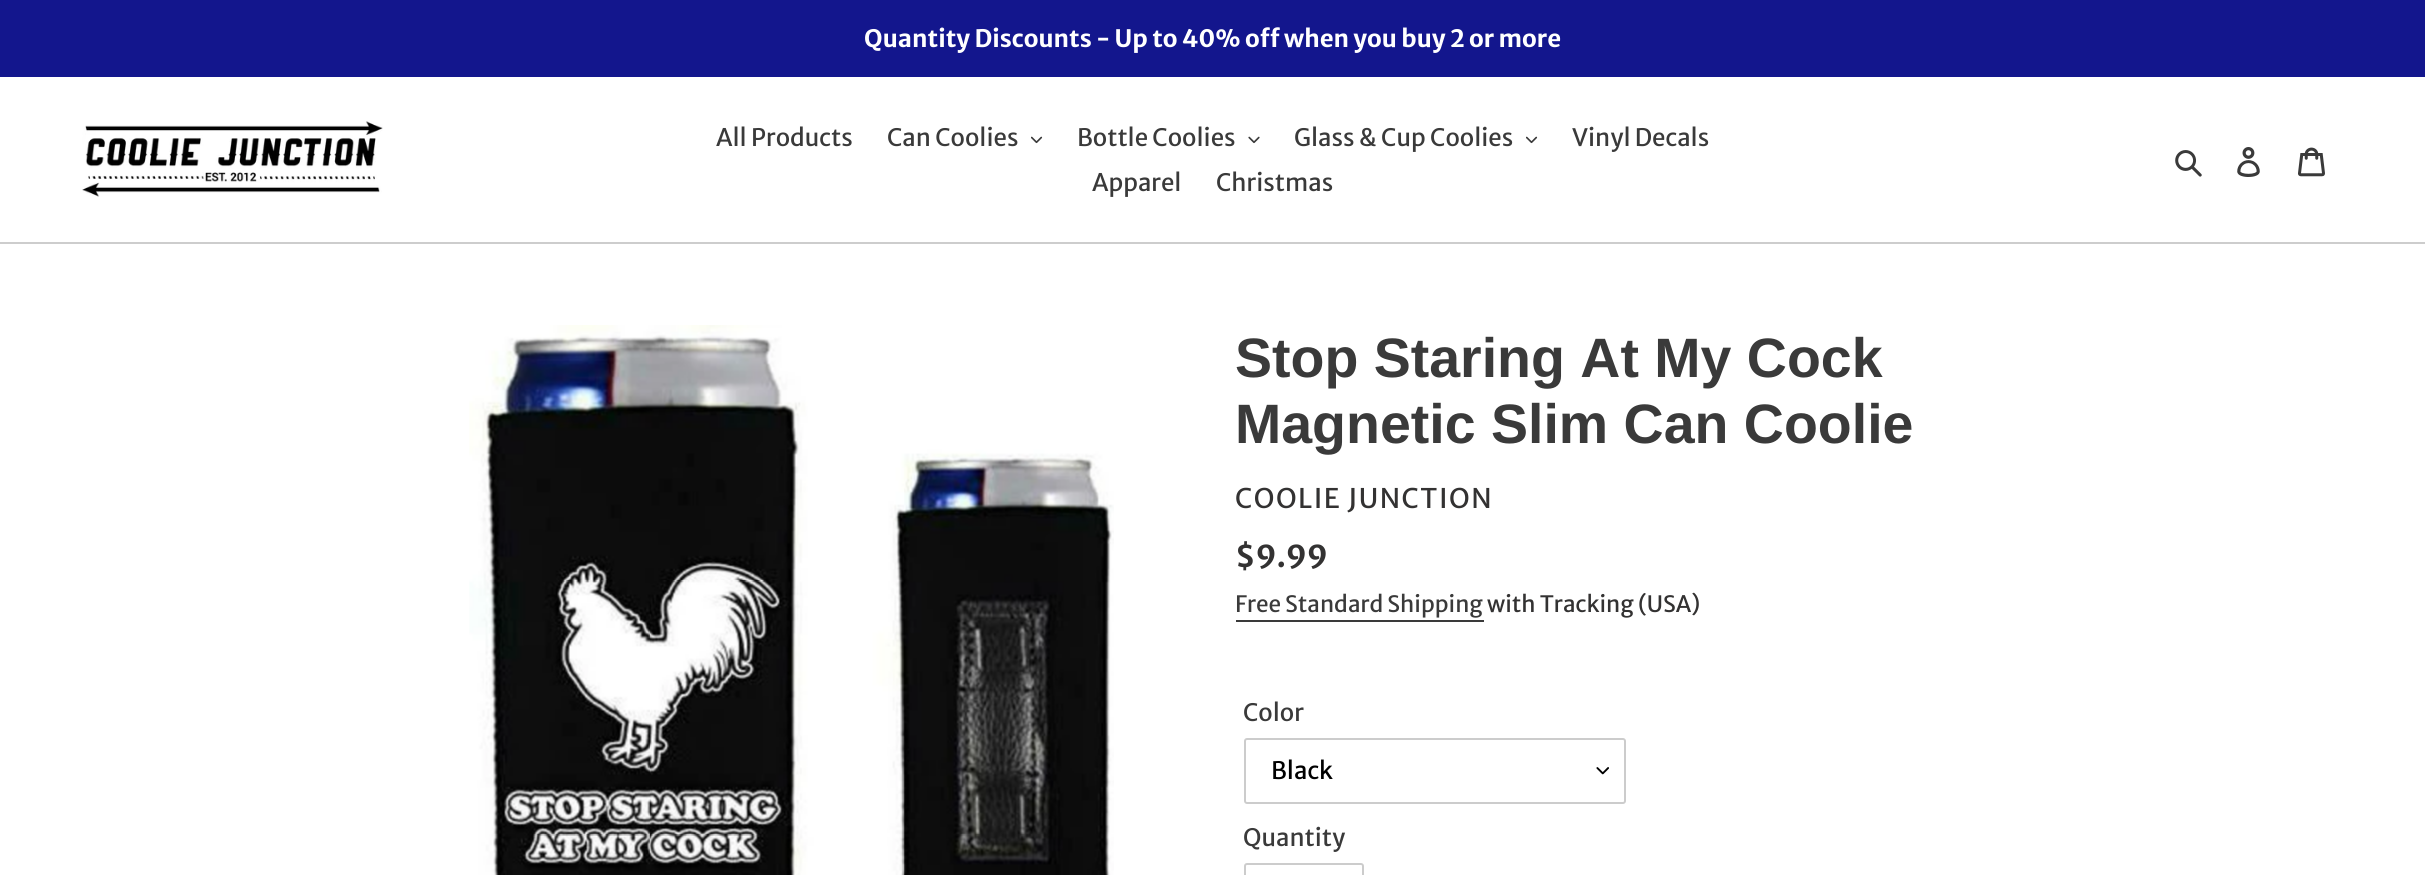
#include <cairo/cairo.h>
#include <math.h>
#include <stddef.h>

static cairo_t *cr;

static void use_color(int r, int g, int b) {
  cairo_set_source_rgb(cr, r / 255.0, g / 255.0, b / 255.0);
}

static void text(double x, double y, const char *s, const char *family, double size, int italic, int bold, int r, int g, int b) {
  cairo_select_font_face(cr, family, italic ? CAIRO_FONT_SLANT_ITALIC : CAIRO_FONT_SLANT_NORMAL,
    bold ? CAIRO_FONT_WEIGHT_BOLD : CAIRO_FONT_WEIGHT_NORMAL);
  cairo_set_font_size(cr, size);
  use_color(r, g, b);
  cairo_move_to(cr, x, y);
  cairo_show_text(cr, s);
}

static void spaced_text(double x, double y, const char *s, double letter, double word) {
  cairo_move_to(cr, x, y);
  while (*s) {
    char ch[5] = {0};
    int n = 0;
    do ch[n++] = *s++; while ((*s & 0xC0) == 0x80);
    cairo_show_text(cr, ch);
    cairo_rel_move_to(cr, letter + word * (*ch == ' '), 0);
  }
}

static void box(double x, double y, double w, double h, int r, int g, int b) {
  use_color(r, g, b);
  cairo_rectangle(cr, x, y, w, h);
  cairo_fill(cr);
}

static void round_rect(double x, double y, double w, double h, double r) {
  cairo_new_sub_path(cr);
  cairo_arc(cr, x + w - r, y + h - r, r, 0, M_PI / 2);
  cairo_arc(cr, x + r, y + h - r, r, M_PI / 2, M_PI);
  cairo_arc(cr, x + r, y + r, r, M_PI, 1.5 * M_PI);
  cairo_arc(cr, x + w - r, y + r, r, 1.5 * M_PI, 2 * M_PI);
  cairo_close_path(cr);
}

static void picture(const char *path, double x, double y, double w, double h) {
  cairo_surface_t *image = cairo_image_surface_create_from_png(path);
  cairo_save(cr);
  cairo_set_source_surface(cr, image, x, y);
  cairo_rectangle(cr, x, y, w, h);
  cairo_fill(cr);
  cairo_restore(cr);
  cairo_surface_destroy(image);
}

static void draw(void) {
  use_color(255, 255, 255);
  cairo_paint(cr);
  box(0, 0, 2425, 77, 19, 22, 141);
  box(0, 242, 2425, 2, 205, 205, 205);
  picture("img_01.png", 82, 121, 301, 76);
  picture("img_02.png", 1031, 136, 12, 8);
  picture("img_03.png", 1248, 136, 12, 8);
  picture("img_02.png", 1526, 136, 12, 8);
  picture("img_04.png", 2175, 150, 27, 27);
  picture("img_05.png", 2237, 147, 23, 30);
  picture("img_06.png", 2298, 147, 27, 30);
  picture("img_07.png", 469, 325, 645, 550);
  box(1236, 620, 248, 2, 58, 58, 58);
  picture("img_08.png", 1596, 767, 13, 8);
  round_rect(1245, 739, 380, 64, 2);
  use_color(204, 204, 204);
  cairo_stroke(cr);
  round_rect(1245, 864, 118, 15, 2);
  cairo_stroke(cr);
  text(864, 47, "Quantity Discounts - Up to 40% off when you buy 2 or more", "Merriweather Sans", 24, 0, 1, 255, 255, 255);
  text(716, 146, "All Products", "Merriweather Sans", 24, 0, 0, 58, 58, 58);
  text(887, 146, "Can Coolies", "Merriweather Sans", 24, 0, 0, 58, 58, 58);
  text(1077, 146, "Bottle Coolies", "Merriweather Sans", 24, 0, 0, 58, 58, 58);
  text(1294, 146, "Glass & Cup Coolies", "Merriweather Sans", 24, 0, 0, 58, 58, 58);
  text(1572, 146, "Vinyl Decals", "Merriweather Sans", 24, 0, 0, 58, 58, 58);
  text(1092, 191, "Apparel", "Merriweather Sans", 24, 0, 0, 58, 58, 58);
  text(1216, 191, "Christmas", "Merriweather Sans", 24, 0, 0, 58, 58, 58);
  text(1235, 377, "Stop Staring At My Cock", "Liberation Sans", 55.5, 0, 1, 58, 58, 58);
  text(1235, 443, "Magnetic Slim Can Coolie", "Liberation Sans", 55.5, 0, 1, 58, 58, 58);
  cairo_select_font_face(cr, "Merriweather Sans", CAIRO_FONT_SLANT_NORMAL, CAIRO_FONT_WEIGHT_NORMAL);
  cairo_set_font_size(cr, 27);
  use_color(51, 50, 50);
  spaced_text(1235, 508, "COOLIE JUNCTION", 1.5, 0);
  text(1235, 567, "$9.99", "Merriweather Sans", 30, 0, 1, 51, 50, 50);
  text(1235, 612, "Free Standard Shipping", "Merriweather Sans", 22.5, 0, 0, 58, 58, 58);
  text(1487, 612, "with Tracking (USA)", "Merriweather Sans", 22.5, 0, 0, 51, 50, 50);
  text(1243, 721, "Color", "Merriweather Sans", 24, 0, 0, 58, 58, 58);
  text(1271, 779, "Black", "Merriweather Sans", 24, 0, 0, 0, 0, 0);
  text(1243, 846, "Quantity", "Merriweather Sans", 24, 0, 0, 58, 58, 58);
}

int main(void) {
  cairo_surface_t *surface = cairo_image_surface_create(CAIRO_FORMAT_RGB24, 2425, 875);
  cr = cairo_create(surface);
  cairo_font_options_t *options = cairo_font_options_create();
  cairo_font_options_set_hint_metrics(options, CAIRO_HINT_METRICS_OFF);
  cairo_font_options_set_hint_style(options, CAIRO_HINT_STYLE_NONE);
  cairo_set_font_options(cr, options);
  cairo_set_miter_limit(cr, 4);
  draw();
  cairo_surface_write_to_png(surface, "out.png");
  cairo_font_options_destroy(options);
  cairo_destroy(cr);
  cairo_surface_destroy(surface);
  return 0;
}
